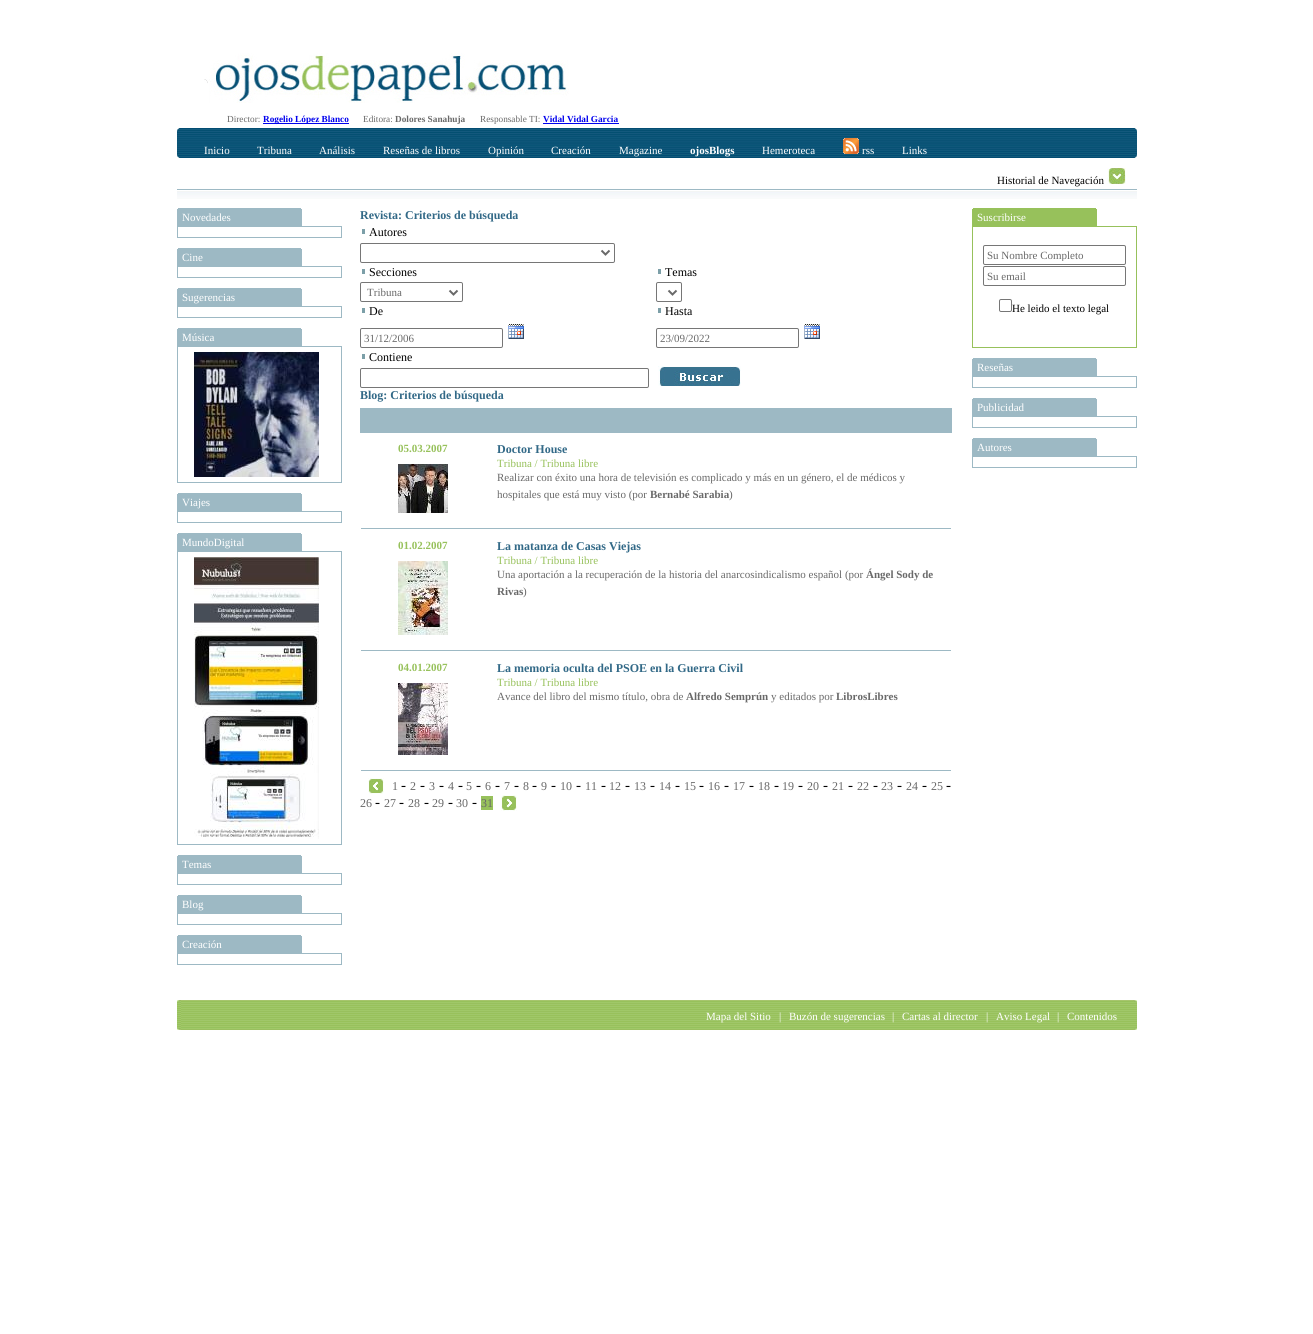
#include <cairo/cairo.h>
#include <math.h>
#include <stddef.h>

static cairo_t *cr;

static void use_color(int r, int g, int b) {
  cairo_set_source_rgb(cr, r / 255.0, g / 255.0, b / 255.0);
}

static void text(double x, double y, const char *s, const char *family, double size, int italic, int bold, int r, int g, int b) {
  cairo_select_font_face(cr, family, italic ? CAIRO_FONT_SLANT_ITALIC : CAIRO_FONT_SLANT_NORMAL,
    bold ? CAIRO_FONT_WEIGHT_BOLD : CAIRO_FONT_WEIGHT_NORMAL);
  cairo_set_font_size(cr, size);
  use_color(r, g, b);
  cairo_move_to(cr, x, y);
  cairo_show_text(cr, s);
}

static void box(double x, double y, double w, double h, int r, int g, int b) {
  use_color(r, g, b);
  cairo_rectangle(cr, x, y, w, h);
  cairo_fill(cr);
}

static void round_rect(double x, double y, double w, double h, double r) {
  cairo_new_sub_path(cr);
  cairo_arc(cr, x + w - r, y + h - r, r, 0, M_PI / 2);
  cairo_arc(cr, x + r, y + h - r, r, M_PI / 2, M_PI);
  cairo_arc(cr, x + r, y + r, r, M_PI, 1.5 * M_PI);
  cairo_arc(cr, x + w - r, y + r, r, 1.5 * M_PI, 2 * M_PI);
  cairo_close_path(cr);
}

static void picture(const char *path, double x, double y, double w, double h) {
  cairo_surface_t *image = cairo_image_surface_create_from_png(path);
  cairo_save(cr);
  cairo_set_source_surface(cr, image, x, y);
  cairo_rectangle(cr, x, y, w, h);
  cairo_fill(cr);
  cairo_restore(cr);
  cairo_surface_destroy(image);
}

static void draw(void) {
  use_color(255, 255, 255);
  cairo_paint(cr);
  picture("img_01.png", 204, 53, 365, 50);
  box(263, 123, 86, 1, 0, 0, 238);
  box(543, 123, 76, 1, 0, 0, 238);
  box(180, 128, 954, 30, 3, 77, 114);
  picture("img_02.png", 180, 129, 954, 28);
  picture("img_03.png", 177, 128, 3, 30);
  picture("img_04.png", 843, 138, 16, 16);
  picture("img_05.png", 1134, 128, 3, 30);
  picture("img_06.png", 1107, 168, 19, 16);
  picture("img_07.png", 177, 191, 960, 8);
  box(177, 189, 960, 1, 157, 185, 196);
  box(177, 209, 125, 17, 157, 185, 196);
  box(178, 208, 123, 1, 157, 185, 196);
  cairo_rectangle(cr, 177.5, 226.5, 164, 11);
  cairo_set_line_width(cr, 1);
  cairo_stroke(cr);
  box(177, 249, 125, 17, 157, 185, 196);
  box(178, 248, 123, 1, 157, 185, 196);
  cairo_rectangle(cr, 177.5, 266.5, 164, 11);
  cairo_stroke(cr);
  box(177, 289, 125, 17, 157, 185, 196);
  box(178, 288, 123, 1, 157, 185, 196);
  cairo_rectangle(cr, 177.5, 306.5, 164, 11);
  cairo_stroke(cr);
  box(177, 329, 125, 17, 157, 185, 196);
  box(178, 328, 123, 1, 157, 185, 196);
  cairo_rectangle(cr, 177.5, 346.5, 164, 136);
  cairo_stroke(cr);
  picture("img_08.png", 194, 352, 125, 125);
  box(177, 494, 125, 17, 157, 185, 196);
  box(178, 493, 123, 1, 157, 185, 196);
  cairo_rectangle(cr, 177.5, 511.5, 164, 11);
  cairo_stroke(cr);
  box(177, 534, 125, 17, 157, 185, 196);
  box(178, 533, 123, 1, 157, 185, 196);
  cairo_rectangle(cr, 177.5, 551.5, 164, 293);
  cairo_stroke(cr);
  picture("img_09.png", 194, 557, 125, 282);
  box(177, 856, 125, 17, 157, 185, 196);
  box(178, 855, 123, 1, 157, 185, 196);
  cairo_rectangle(cr, 177.5, 873.5, 164, 11);
  cairo_stroke(cr);
  box(177, 896, 125, 17, 157, 185, 196);
  box(178, 895, 123, 1, 157, 185, 196);
  cairo_rectangle(cr, 177.5, 913.5, 164, 11);
  cairo_stroke(cr);
  box(177, 936, 125, 17, 157, 185, 196);
  box(178, 935, 123, 1, 157, 185, 196);
  cairo_rectangle(cr, 177.5, 953.5, 164, 11);
  cairo_stroke(cr);
  box(362, 229, 3, 5, 124, 159, 168);
  round_rect(360.5, 243.5, 254, 19, 1.5);
  use_color(118, 118, 118);
  cairo_stroke(cr);
  cairo_new_path(cr);
  cairo_move_to(cr, 601.5, 250.5);
  cairo_line_to(cr, 605.5, 254.5);
  cairo_line_to(cr, 609.5, 250.5);
  use_color(105, 105, 105);
  cairo_set_line_width(cr, 2);
  cairo_stroke(cr);
  box(362, 269, 3, 5, 124, 159, 168);
  round_rect(360.5, 282.5, 102, 19, 1.5);
  use_color(118, 118, 118);
  cairo_set_line_width(cr, 1);
  cairo_stroke(cr);
  cairo_new_path(cr);
  cairo_move_to(cr, 449.5, 290.5);
  cairo_line_to(cr, 453.5, 294.5);
  cairo_line_to(cr, 457.5, 290.5);
  use_color(105, 105, 105);
  cairo_set_line_width(cr, 2);
  cairo_stroke(cr);
  box(658, 269, 3, 5, 124, 159, 168);
  round_rect(656.5, 282.5, 25, 19, 1.5);
  use_color(118, 118, 118);
  cairo_set_line_width(cr, 1);
  cairo_stroke(cr);
  cairo_new_path(cr);
  cairo_move_to(cr, 668.5, 290.5);
  cairo_line_to(cr, 672.5, 294.5);
  cairo_line_to(cr, 676.5, 290.5);
  use_color(105, 105, 105);
  cairo_set_line_width(cr, 2);
  cairo_stroke(cr);
  box(362, 308, 3, 5, 124, 159, 168);
  round_rect(360.5, 328.5, 142, 19, 1.5);
  use_color(118, 118, 118);
  cairo_set_line_width(cr, 1);
  cairo_stroke(cr);
  picture("img_10.png", 508, 324, 16, 15);
  box(658, 308, 3, 5, 124, 159, 168);
  round_rect(656.5, 328.5, 142, 19, 1.5);
  use_color(118, 118, 118);
  cairo_stroke(cr);
  picture("img_10.png", 804, 324, 16, 15);
  box(362, 354, 3, 5, 124, 159, 168);
  round_rect(360.5, 368.5, 288, 19, 1.5);
  use_color(118, 118, 118);
  cairo_stroke(cr);
  picture("img_11.png", 658, 366, 83, 20);
  box(360, 408, 592, 25, 157, 185, 196);
  box(361, 528, 590, 1, 157, 185, 196);
  picture("img_12.png", 398, 464, 50, 49);
  box(361, 650, 590, 1, 157, 185, 196);
  picture("img_13.png", 398, 561, 50, 74);
  box(361, 770, 590, 1, 157, 185, 196);
  picture("img_14.png", 398, 683, 50, 72);
  picture("img_15.png", 368, 778, 16, 16);
  box(481, 796, 12, 14, 151, 193, 91);
  picture("img_16.png", 501, 795, 16, 16);
  box(972, 209, 125, 17, 151, 193, 91);
  box(973, 208, 123, 1, 151, 193, 91);
  cairo_rectangle(cr, 972.5, 226.5, 164, 121);
  cairo_stroke(cr);
  round_rect(983.5, 245.5, 142, 19, 1.5);
  use_color(118, 118, 118);
  cairo_stroke(cr);
  round_rect(983.5, 266.5, 142, 19, 1.5);
  cairo_stroke(cr);
  round_rect(999.5, 299.5, 12, 12, 1.5);
  cairo_stroke(cr);
  box(972, 359, 125, 17, 157, 185, 196);
  box(973, 358, 123, 1, 157, 185, 196);
  cairo_rectangle(cr, 972.5, 376.5, 164, 11);
  cairo_stroke(cr);
  box(972, 399, 125, 17, 157, 185, 196);
  box(973, 398, 123, 1, 157, 185, 196);
  cairo_rectangle(cr, 972.5, 416.5, 164, 11);
  cairo_stroke(cr);
  box(972, 439, 125, 17, 157, 185, 196);
  box(973, 438, 123, 1, 157, 185, 196);
  cairo_rectangle(cr, 972.5, 456.5, 164, 11);
  cairo_stroke(cr);
  picture("img_17.png", 181, 1000, 952, 30);
  picture("img_18.png", 177, 1000, 4, 30);
  picture("img_19.png", 1133, 1000, 4, 30);
  text(227, 122, "Director:", "Liberation Serif", 9.25, 0, 0, 105, 105, 105);
  text(263, 122, "Rogelio López Blanco", "Liberation Serif", 9.25, 0, 1, 0, 0, 238);
  text(363, 122, "Editora:", "Liberation Serif", 9.25, 0, 0, 105, 105, 105);
  text(395, 122, "Dolores Sanahuja", "Liberation Serif", 9.25, 0, 1, 105, 105, 105);
  text(480, 122, "Responsable TI:", "Liberation Serif", 9.25, 0, 0, 105, 105, 105);
  text(543, 122, "Vidal Vidal Garcia", "Liberation Serif", 9.25, 0, 1, 0, 0, 238);
  text(204, 154, "Inicio", "Liberation Serif", 11, 0, 0, 255, 255, 255);
  text(257, 154, "Tribuna", "Liberation Serif", 11, 0, 0, 255, 255, 255);
  text(319, 154, "Análisis", "Liberation Serif", 11, 0, 0, 255, 255, 255);
  text(383, 154, "Reseñas de libros", "Liberation Serif", 11, 0, 0, 255, 255, 255);
  text(488, 154, "Opinión", "Liberation Serif", 11, 0, 0, 255, 255, 255);
  text(551, 154, "Creación", "Liberation Serif", 11, 0, 0, 255, 255, 255);
  text(619, 154, "Magazine", "Liberation Serif", 11, 0, 0, 255, 255, 255);
  text(690, 154, "ojosBlogs", "Liberation Serif", 11, 0, 1, 255, 255, 255);
  text(762, 154, "Hemeroteca", "Liberation Serif", 11, 0, 0, 255, 255, 255);
  text(862, 154, "rss", "Liberation Serif", 11, 0, 0, 255, 255, 255);
  text(902, 154, "Links", "Liberation Serif", 11, 0, 0, 255, 255, 255);
  text(997, 184, "Historial de Navegación", "Liberation Serif", 11, 0, 0, 0, 0, 0);
  text(182, 221, "Novedades", "Liberation Serif", 11, 0, 0, 255, 255, 255);
  text(182, 261, "Cine", "Liberation Serif", 11, 0, 0, 255, 255, 255);
  text(182, 301, "Sugerencias", "Liberation Serif", 11, 0, 0, 255, 255, 255);
  text(182, 341, "Música", "Liberation Serif", 11, 0, 0, 255, 255, 255);
  text(182, 506, "Viajes", "Liberation Serif", 11, 0, 0, 255, 255, 255);
  text(182, 546, "MundoDigital", "Liberation Serif", 11, 0, 0, 255, 255, 255);
  text(182, 868, "Temas", "Liberation Serif", 11, 0, 0, 255, 255, 255);
  text(182, 908, "Blog", "Liberation Serif", 11, 0, 0, 255, 255, 255);
  text(182, 948, "Creación", "Liberation Serif", 11, 0, 0, 255, 255, 255);
  text(360, 219, "Revista: Criterios de búsqueda", "Liberation Serif", 12, 0, 1, 50, 105, 135);
  text(369, 236, "Autores", "Liberation Serif", 12, 0, 0, 0, 0, 0);
  text(369, 276, "Secciones", "Liberation Serif", 12, 0, 0, 0, 0, 0);
  text(367, 296, "Tribuna", "Liberation Serif", 11, 0, 0, 105, 105, 105);
  text(665, 276, "Temas", "Liberation Serif", 12, 0, 0, 0, 0, 0);
  text(369, 315, "De", "Liberation Serif", 12, 0, 0, 0, 0, 0);
  text(364, 342, "31/12/2006", "Liberation Serif", 11, 0, 0, 105, 105, 105);
  text(665, 315, "Hasta", "Liberation Serif", 12, 0, 0, 0, 0, 0);
  text(660, 342, "23/09/2022", "Liberation Serif", 11, 0, 0, 105, 105, 105);
  text(369, 361, "Contiene", "Liberation Serif", 12, 0, 0, 0, 0, 0);
  text(360, 399, "Blog: Criterios de búsqueda", "Liberation Serif", 12, 0, 1, 50, 105, 135);
  text(398, 452, "05.03.2007", "Liberation Serif", 11, 0, 1, 151, 193, 91);
  text(497, 453, "Doctor House", "Liberation Serif", 12, 0, 1, 50, 105, 135);
  text(497, 467, "Tribuna / Tribuna libre", "Liberation Serif", 11, 0, 0, 151, 193, 91);
  text(497, 481, "Realizar con éxito una hora de televisión es complicado y más en un género, el de médicos y", "Liberation Serif", 11, 0, 0, 105, 105, 105);
  text(497, 498, "hospitales que está muy visto (por", "Liberation Serif", 11, 0, 0, 105, 105, 105);
  text(650, 498, "Bernabé Sarabia", "Liberation Serif", 11, 0, 1, 105, 105, 105);
  text(729, 498, ")", "Liberation Serif", 11, 0, 0, 105, 105, 105);
  text(398, 549, "01.02.2007", "Liberation Serif", 11, 0, 1, 151, 193, 91);
  text(497, 550, "La matanza de Casas Viejas", "Liberation Serif", 12, 0, 1, 50, 105, 135);
  text(497, 564, "Tribuna / Tribuna libre", "Liberation Serif", 11, 0, 0, 151, 193, 91);
  text(497, 578, "Una aportación a la recuperación de la historia del anarcosindicalismo español (por", "Liberation Serif", 11, 0, 0, 105, 105, 105);
  text(866, 578, "Ángel Sody de", "Liberation Serif", 11, 0, 1, 105, 105, 105);
  text(497, 595, "Rivas", "Liberation Serif", 11, 0, 1, 105, 105, 105);
  text(523, 595, ")", "Liberation Serif", 11, 0, 0, 105, 105, 105);
  text(398, 671, "04.01.2007", "Liberation Serif", 11, 0, 1, 151, 193, 91);
  text(497, 672, "La memoria oculta del PSOE en la Guerra Civil", "Liberation Serif", 12, 0, 1, 50, 105, 135);
  text(497, 686, "Tribuna / Tribuna libre", "Liberation Serif", 11, 0, 0, 151, 193, 91);
  text(497, 700, "Avance del libro del mismo título, obra de", "Liberation Serif", 11, 0, 0, 105, 105, 105);
  text(686, 700, "Alfredo Semprún", "Liberation Serif", 11, 0, 1, 105, 105, 105);
  text(771, 700, "y editados por", "Liberation Serif", 11, 0, 0, 105, 105, 105);
  text(836, 700, "LibrosLibres", "Liberation Serif", 11, 0, 1, 105, 105, 105);
  text(392, 790, "1", "Liberation Serif", 12, 0, 0, 105, 105, 105);
  text(401, 790, "-", "Liberation Serif", 15, 0, 0, 0, 0, 0);
  text(410, 790, "2", "Liberation Serif", 12, 0, 0, 105, 105, 105);
  text(420, 790, "-", "Liberation Serif", 15, 0, 0, 0, 0, 0);
  text(429, 790, "3", "Liberation Serif", 12, 0, 0, 105, 105, 105);
  text(439, 790, "-", "Liberation Serif", 15, 0, 0, 0, 0, 0);
  text(448, 790, "4", "Liberation Serif", 12, 0, 0, 105, 105, 105);
  text(458, 790, "-", "Liberation Serif", 15, 0, 0, 0, 0, 0);
  text(466, 790, "5", "Liberation Serif", 12, 0, 0, 105, 105, 105);
  text(476, 790, "-", "Liberation Serif", 15, 0, 0, 0, 0, 0);
  text(485, 790, "6", "Liberation Serif", 12, 0, 0, 105, 105, 105);
  text(495, 790, "-", "Liberation Serif", 15, 0, 0, 0, 0, 0);
  text(504, 790, "7", "Liberation Serif", 12, 0, 0, 105, 105, 105);
  text(514, 790, "-", "Liberation Serif", 15, 0, 0, 0, 0, 0);
  text(523, 790, "8", "Liberation Serif", 12, 0, 0, 105, 105, 105);
  text(532, 790, "-", "Liberation Serif", 15, 0, 0, 0, 0, 0);
  text(541, 790, "9", "Liberation Serif", 12, 0, 0, 105, 105, 105);
  text(551, 790, "-", "Liberation Serif", 15, 0, 0, 0, 0, 0);
  text(560, 790, "10", "Liberation Serif", 12, 0, 0, 105, 105, 105);
  text(576, 790, "-", "Liberation Serif", 15, 0, 0, 0, 0, 0);
  text(585, 790, "11", "Liberation Serif", 12, 0, 0, 105, 105, 105);
  text(601, 790, "-", "Liberation Serif", 15, 0, 0, 0, 0, 0);
  text(609, 790, "12", "Liberation Serif", 12, 0, 0, 105, 105, 105);
  text(625, 790, "-", "Liberation Serif", 15, 0, 0, 0, 0, 0);
  text(634, 790, "13", "Liberation Serif", 12, 0, 0, 105, 105, 105);
  text(650, 790, "-", "Liberation Serif", 15, 0, 0, 0, 0, 0);
  text(659, 790, "14", "Liberation Serif", 12, 0, 0, 105, 105, 105);
  text(675, 790, "-", "Liberation Serif", 15, 0, 0, 0, 0, 0);
  text(684, 790, "15", "Liberation Serif", 12, 0, 0, 105, 105, 105);
  text(699, 790, "-", "Liberation Serif", 15, 0, 0, 0, 0, 0);
  text(708, 790, "16", "Liberation Serif", 12, 0, 0, 105, 105, 105);
  text(724, 790, "-", "Liberation Serif", 15, 0, 0, 0, 0, 0);
  text(733, 790, "17", "Liberation Serif", 12, 0, 0, 105, 105, 105);
  text(749, 790, "-", "Liberation Serif", 15, 0, 0, 0, 0, 0);
  text(758, 790, "18", "Liberation Serif", 12, 0, 0, 105, 105, 105);
  text(774, 790, "-", "Liberation Serif", 15, 0, 0, 0, 0, 0);
  text(782, 790, "19", "Liberation Serif", 12, 0, 0, 105, 105, 105);
  text(798, 790, "-", "Liberation Serif", 15, 0, 0, 0, 0, 0);
  text(807, 790, "20", "Liberation Serif", 12, 0, 0, 105, 105, 105);
  text(823, 790, "-", "Liberation Serif", 15, 0, 0, 0, 0, 0);
  text(832, 790, "21", "Liberation Serif", 12, 0, 0, 105, 105, 105);
  text(848, 790, "-", "Liberation Serif", 15, 0, 0, 0, 0, 0);
  text(857, 790, "22", "Liberation Serif", 12, 0, 0, 105, 105, 105);
  text(873, 790, "-", "Liberation Serif", 15, 0, 0, 0, 0, 0);
  text(881, 790, "23", "Liberation Serif", 12, 0, 0, 105, 105, 105);
  text(897, 790, "-", "Liberation Serif", 15, 0, 0, 0, 0, 0);
  text(906, 790, "24", "Liberation Serif", 12, 0, 0, 105, 105, 105);
  text(922, 790, "-", "Liberation Serif", 15, 0, 0, 0, 0, 0);
  text(931, 790, "25", "Liberation Serif", 12, 0, 0, 105, 105, 105);
  text(946, 790, "-", "Liberation Serif", 15, 0, 0, 0, 0, 0);
  text(360, 807, "26", "Liberation Serif", 12, 0, 0, 105, 105, 105);
  text(375, 807, "-", "Liberation Serif", 15, 0, 0, 0, 0, 0);
  text(384, 807, "27", "Liberation Serif", 12, 0, 0, 105, 105, 105);
  text(399, 807, "-", "Liberation Serif", 15, 0, 0, 0, 0, 0);
  text(408, 807, "28", "Liberation Serif", 12, 0, 0, 105, 105, 105);
  text(424, 807, "-", "Liberation Serif", 15, 0, 0, 0, 0, 0);
  text(432, 807, "29", "Liberation Serif", 12, 0, 0, 105, 105, 105);
  text(448, 807, "-", "Liberation Serif", 15, 0, 0, 0, 0, 0);
  text(456, 807, "30", "Liberation Serif", 12, 0, 0, 105, 105, 105);
  text(472, 807, "-", "Liberation Serif", 15, 0, 0, 0, 0, 0);
  text(481, 807, "31", "Liberation Serif", 12, 0, 0, 105, 105, 105);
  text(977, 221, "Suscribirse", "Liberation Serif", 11, 0, 0, 255, 255, 255);
  cairo_save(cr);
  cairo_rectangle(cr, 987, 249, 135, 12);
  cairo_clip(cr);
  text(987, 259, "Su Nombre Completo", "Liberation Serif", 11, 0, 0, 105, 105, 105);
  cairo_restore(cr);
  text(987, 280, "Su email", "Liberation Serif", 11, 0, 0, 105, 105, 105);
  text(1012, 312, "He leido el texto legal", "Liberation Serif", 11, 0, 0, 0, 0, 0);
  text(977, 371, "Reseñas", "Liberation Serif", 11, 0, 0, 255, 255, 255);
  text(977, 411, "Publicidad", "Liberation Serif", 11, 0, 0, 255, 255, 255);
  text(977, 451, "Autores", "Liberation Serif", 11, 0, 0, 255, 255, 255);
  text(706, 1020, "Mapa del Sitio", "Liberation Serif", 11, 0, 0, 255, 255, 255);
  text(779, 1020, "|", "Liberation Serif", 11, 0, 0, 255, 255, 255);
  text(789, 1020, "Buzón de sugerencias", "Liberation Serif", 11, 0, 0, 255, 255, 255);
  text(892, 1020, "|", "Liberation Serif", 11, 0, 0, 255, 255, 255);
  text(902, 1020, "Cartas al director", "Liberation Serif", 11, 0, 0, 255, 255, 255);
  text(986, 1020, "|", "Liberation Serif", 11, 0, 0, 255, 255, 255);
  text(996, 1020, "Aviso Legal", "Liberation Serif", 11, 0, 0, 255, 255, 255);
  text(1057, 1020, "|", "Liberation Serif", 11, 0, 0, 255, 255, 255);
  text(1067, 1020, "Contenidos", "Liberation Serif", 11, 0, 0, 255, 255, 255);
}

int main(void) {
  cairo_surface_t *surface = cairo_image_surface_create(CAIRO_FORMAT_RGB24, 1313, 1334);
  cr = cairo_create(surface);
  cairo_font_options_t *options = cairo_font_options_create();
  cairo_font_options_set_hint_metrics(options, CAIRO_HINT_METRICS_OFF);
  cairo_font_options_set_hint_style(options, CAIRO_HINT_STYLE_NONE);
  cairo_set_font_options(cr, options);
  cairo_set_miter_limit(cr, 4);
  draw();
  cairo_surface_write_to_png(surface, "out.png");
  cairo_font_options_destroy(options);
  cairo_destroy(cr);
  cairo_surface_destroy(surface);
  return 0;
}
